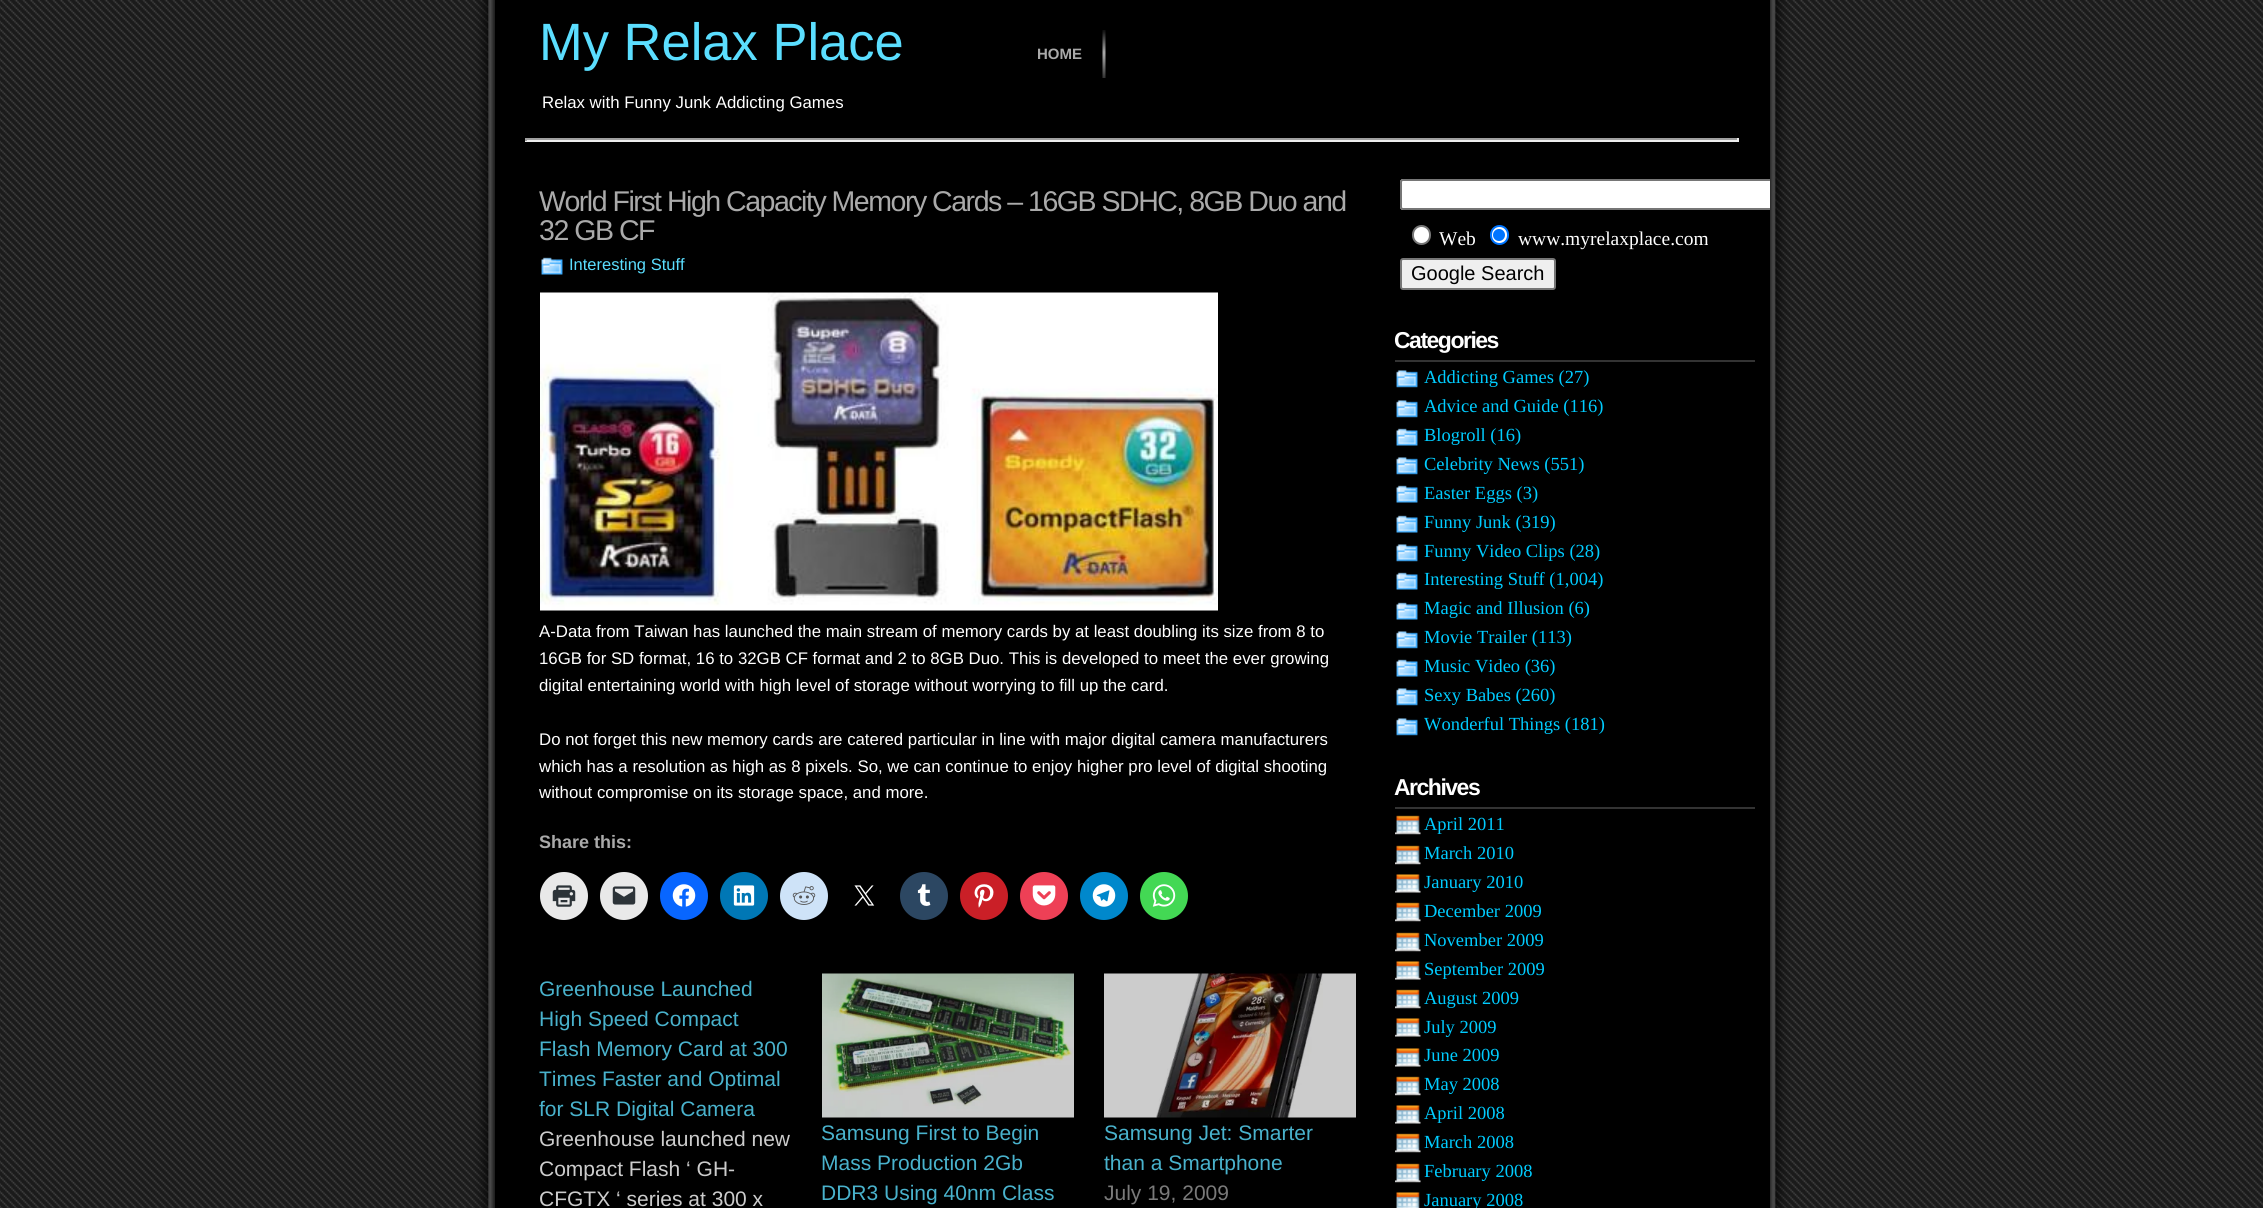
#include <cairo/cairo.h>
#include <math.h>
#include <stddef.h>

static cairo_t *cr;

static void use_color(int r, int g, int b) {
  cairo_set_source_rgb(cr, r / 255.0, g / 255.0, b / 255.0);
}

static void text(double x, double y, const char *s, const char *family, double size, int italic, int bold, int r, int g, int b) {
  cairo_select_font_face(cr, family, italic ? CAIRO_FONT_SLANT_ITALIC : CAIRO_FONT_SLANT_NORMAL,
    bold ? CAIRO_FONT_WEIGHT_BOLD : CAIRO_FONT_WEIGHT_NORMAL);
  cairo_set_font_size(cr, size);
  use_color(r, g, b);
  cairo_move_to(cr, x, y);
  cairo_show_text(cr, s);
}

static void spaced_text(double x, double y, const char *s, double letter, double word) {
  cairo_move_to(cr, x, y);
  while (*s) {
    char ch[5] = {0};
    int n = 0;
    do ch[n++] = *s++; while ((*s & 0xC0) == 0x80);
    cairo_show_text(cr, ch);
    cairo_rel_move_to(cr, letter + word * (*ch == ' '), 0);
  }
}

static void box(double x, double y, double w, double h, int r, int g, int b) {
  use_color(r, g, b);
  cairo_rectangle(cr, x, y, w, h);
  cairo_fill(cr);
}

static void round_rect(double x, double y, double w, double h, double r) {
  cairo_new_sub_path(cr);
  cairo_arc(cr, x + w - r, y + h - r, r, 0, M_PI / 2);
  cairo_arc(cr, x + r, y + h - r, r, M_PI / 2, M_PI);
  cairo_arc(cr, x + r, y + r, r, M_PI, 1.5 * M_PI);
  cairo_arc(cr, x + w - r, y + r, r, 1.5 * M_PI, 2 * M_PI);
  cairo_close_path(cr);
}

static void picture(const char *path, double x, double y, double w, double h) {
  cairo_surface_t *image = cairo_image_surface_create_from_png(path);
  cairo_save(cr);
  cairo_set_source_surface(cr, image, x, y);
  cairo_rectangle(cr, x, y, w, h);
  cairo_fill(cr);
  cairo_restore(cr);
  cairo_surface_destroy(image);
}

static void draw(void) {
  use_color(255, 255, 255);
  cairo_paint(cr);
  picture("img_01.png", 0, 0, 2263, 1208);
  box(495, 0, 1275, 1208, 0, 0, 0);
  picture("img_02.png", 1102, 30, 4, 48);
  box(525, 138, 1214, 2, 159, 159, 159);
  box(1737, 138, 2, 3, 238, 238, 238);
  box(525, 140, 1214, 2, 238, 238, 238);
  box(525, 138, 2, 3, 159, 159, 159);
  picture("img_03.png", 541, 257, 22, 18);
  picture("img_04.png", 540, 292, 678, 319);
  use_color(233, 233, 233);
  cairo_arc(cr, 564, 896, 24, 0, 2 * M_PI);
  cairo_fill(cr);
  picture("img_05.png", 552, 885, 24, 22);
  cairo_arc(cr, 624, 896, 24, 0, 2 * M_PI);
  cairo_fill(cr);
  picture("img_06.png", 612, 886, 24, 19);
  use_color(8, 102, 255);
  cairo_arc(cr, 684, 896, 24, 0, 2 * M_PI);
  cairo_fill(cr);
  picture("img_07.png", 672, 884, 24, 23);
  use_color(0, 119, 181);
  cairo_arc(cr, 744, 896, 24, 0, 2 * M_PI);
  cairo_fill(cr);
  picture("img_08.png", 733, 885, 22, 21);
  use_color(206, 227, 248);
  cairo_arc(cr, 804, 896, 24, 0, 2 * M_PI);
  cairo_fill(cr);
  picture("img_09.png", 792, 886, 24, 19);
  picture("img_10.png", 854, 885, 21, 21);
  use_color(44, 71, 98);
  cairo_arc(cr, 924, 896, 24, 0, 2 * M_PI);
  cairo_fill(cr);
  picture("img_11.png", 917, 884, 14, 22);
  use_color(202, 31, 39);
  cairo_arc(cr, 984, 896, 24, 0, 2 * M_PI);
  cairo_fill(cr);
  picture("img_12.png", 974, 884, 20, 24);
  use_color(238, 64, 86);
  cairo_arc(cr, 1044, 896, 24, 0, 2 * M_PI);
  cairo_fill(cr);
  picture("img_13.png", 1032, 885, 24, 21);
  use_color(0, 136, 204);
  cairo_arc(cr, 1104, 896, 24, 0, 2 * M_PI);
  cairo_fill(cr);
  picture("img_14.png", 1092, 884, 24, 23);
  use_color(67, 216, 84);
  cairo_arc(cr, 1164, 896, 24, 0, 2 * M_PI);
  cairo_fill(cr);
  picture("img_15.png", 1152, 884, 24, 23);
  picture("img_16.png", 822, 973, 252, 145);
  picture("img_17.png", 1104, 973, 252, 145);
  use_color(255, 255, 255);
  cairo_new_path(cr);
  cairo_move_to(cr, 1403, 179);
  cairo_line_to(cr, 1770, 179);
  cairo_line_to(cr, 1770, 210);
  cairo_line_to(cr, 1403, 210);
  cairo_curve_to(cr, 1401.5, 210, 1400, 208.5, 1400, 207);
  cairo_line_to(cr, 1400, 182);
  cairo_curve_to(cr, 1400, 180.5, 1401.5, 179, 1403, 179);
  cairo_close_path(cr);
  cairo_fill(cr);
  cairo_save(cr);
  cairo_rectangle(cr, 1395, 150, 375, 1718);
  cairo_clip(cr);
  round_rect(1401, 180, 407, 29, 2);
  use_color(118, 118, 118);
  cairo_stroke(cr);
  cairo_restore(cr);
  round_rect(1413, 226, 17, 18, 8.5);
  cairo_fill_preserve(cr);
  use_color(118, 118, 118);
  cairo_stroke(cr);
  use_color(255, 255, 255);
  round_rect(1491, 226, 17, 18, 8.5);
  cairo_fill_preserve(cr);
  use_color(0, 117, 255);
  cairo_stroke(cr);
  cairo_arc(cr, 1499, 235, 6, 0, 2 * M_PI);
  cairo_fill(cr);
  use_color(239, 239, 239);
  round_rect(1401, 259, 154, 30, 2);
  cairo_fill_preserve(cr);
  use_color(118, 118, 118);
  cairo_stroke(cr);
  box(1395, 360, 360, 2, 51, 51, 51);
  picture("img_18.png", 1396, 370, 22, 18);
  picture("img_18.png", 1396, 400, 22, 18);
  picture("img_03.png", 1396, 428, 22, 18);
  picture("img_18.png", 1396, 457, 22, 18);
  picture("img_03.png", 1396, 485, 22, 18);
  picture("img_03.png", 1396, 515, 22, 18);
  picture("img_18.png", 1396, 544, 22, 18);
  picture("img_03.png", 1396, 572, 22, 18);
  picture("img_03.png", 1396, 602, 22, 18);
  picture("img_18.png", 1396, 631, 22, 18);
  picture("img_03.png", 1396, 659, 22, 18);
  picture("img_18.png", 1396, 688, 22, 18);
  picture("img_18.png", 1396, 718, 22, 18);
  box(1395, 807, 360, 2, 51, 51, 51);
  picture("img_19.png", 1395, 815, 26, 20);
  picture("img_19.png", 1395, 845, 26, 20);
  picture("img_20.png", 1395, 874, 26, 19);
  picture("img_19.png", 1395, 902, 26, 20);
  picture("img_19.png", 1395, 932, 26, 20);
  picture("img_20.png", 1395, 961, 26, 19);
  picture("img_19.png", 1395, 989, 26, 20);
  picture("img_20.png", 1395, 1018, 26, 19);
  picture("img_20.png", 1395, 1048, 26, 19);
  picture("img_19.png", 1395, 1076, 26, 20);
  picture("img_20.png", 1395, 1105, 26, 19);
  picture("img_19.png", 1395, 1133, 26, 20);
  picture("img_19.png", 1395, 1163, 26, 20);
  picture("img_21.png", 1396, 1192, 24, 16);
  text(539, 60, "My Relax Place", "Liberation Sans", 52.5, 0, 0, 91, 222, 255);
  text(1037, 59, "HOME", "Liberation Sans", 15, 0, 1, 170, 170, 170);
  text(542, 108, "Relax with Funny Junk Addicting Games", "Liberation Sans", 16.8, 0, 0, 255, 255, 255);
  cairo_set_font_size(cr, 28.55);
  use_color(170, 170, 170);
  spaced_text(539, 211, "World First High Capacity Memory Cards – 16GB SDHC, 8GB Duo and", -1.5, 0);
  spaced_text(539, 240, "32 GB CF", -1.5, 0);
  text(569, 270, "Interesting Stuff", "Liberation Sans", 16.5, 0, 0, 91, 222, 255);
  text(539, 637, "A-Data from Taiwan has launched the main stream of memory cards by at least doubling its size from 8 to", "Liberation Sans", 16.8, 0, 0, 255, 255, 255);
  text(539, 664, "16GB for SD format, 16 to 32GB CF format and 2 to 8GB Duo. This is developed to meet the ever growing", "Liberation Sans", 16.8, 0, 0, 255, 255, 255);
  text(539, 691, "digital entertaining world with high level of storage without worrying to fill up the card.", "Liberation Sans", 16.8, 0, 0, 255, 255, 255);
  text(539, 745, "Do not forget this new memory cards are catered particular in line with major digital camera manufacturers", "Liberation Sans", 16.8, 0, 0, 255, 255, 255);
  text(539, 772, "which has a resolution as high as 8 pixels. So, we can continue to enjoy higher pro level of digital shooting", "Liberation Sans", 16.8, 0, 0, 255, 255, 255);
  text(539, 798, "without compromise on its storage space, and more.", "Liberation Sans", 16.8, 0, 0, 255, 255, 255);
  text(539, 848, "Share this:", "Liberation Sans", 18, 0, 1, 170, 170, 170);
  text(539, 996, "Greenhouse Launched", "Liberation Sans", 21, 0, 0, 73, 178, 204);
  text(539, 1026, "High Speed Compact", "Liberation Sans", 21, 0, 0, 73, 178, 204);
  text(539, 1056, "Flash Memory Card at 300", "Liberation Sans", 21, 0, 0, 73, 178, 204);
  text(539, 1086, "Times Faster and Optimal", "Liberation Sans", 21, 0, 0, 73, 178, 204);
  text(539, 1116, "for SLR Digital Camera", "Liberation Sans", 21, 0, 0, 73, 178, 204);
  text(539, 1146, "Greenhouse launched new", "Liberation Sans", 21, 0, 0, 204, 204, 204);
  text(539, 1176, "Compact Flash ‘ GH-", "Liberation Sans", 21, 0, 0, 204, 204, 204);
  text(539, 1206, "CFGTX ‘ series at 300 x", "Liberation Sans", 21, 0, 0, 204, 204, 204);
  text(821, 1140, "Samsung First to Begin", "Liberation Sans", 21, 0, 0, 73, 178, 204);
  text(821, 1170, "Mass Production 2Gb", "Liberation Sans", 21, 0, 0, 73, 178, 204);
  text(821, 1200, "DDR3 Using 40nm Class", "Liberation Sans", 21, 0, 0, 73, 178, 204);
  text(1104, 1140, "Samsung Jet: Smarter", "Liberation Sans", 21, 0, 0, 73, 178, 204);
  text(1104, 1170, "than a Smartphone", "Liberation Sans", 21, 0, 0, 73, 178, 204);
  text(1104, 1200, "July 19, 2009", "Liberation Sans", 21, 0, 0, 122, 122, 122);
  text(1439, 245, "Web", "Liberation Serif", 19.5, 0, 0, 255, 255, 255);
  text(1518, 245, "www.myrelaxplace.com", "Liberation Serif", 19.5, 0, 0, 255, 255, 255);
  text(1411, 280, "Google Search", "Liberation Sans", 20, 0, 0, 0, 0, 0);
  cairo_select_font_face(cr, "Liberation Sans", CAIRO_FONT_SLANT_NORMAL, CAIRO_FONT_WEIGHT_BOLD);
  cairo_set_font_size(cr, 23);
  use_color(255, 255, 255);
  spaced_text(1394, 348, "Categories", -1.5, 0);
  text(1424, 383, "Addicting Games (27)", "Liberation Serif", 18.5, 0, 0, 0, 204, 255);
  text(1424, 412, "Advice and Guide (116)", "Liberation Serif", 18.5, 0, 0, 0, 204, 255);
  text(1424, 441, "Blogroll (16)", "Liberation Serif", 18.5, 0, 0, 0, 204, 255);
  text(1424, 470, "Celebrity News (551)", "Liberation Serif", 18.5, 0, 0, 0, 204, 255);
  text(1424, 499, "Easter Eggs (3)", "Liberation Serif", 18.5, 0, 0, 0, 204, 255);
  text(1424, 528, "Funny Junk (319)", "Liberation Serif", 18.5, 0, 0, 0, 204, 255);
  text(1424, 557, "Funny Video Clips (28)", "Liberation Serif", 18.5, 0, 0, 0, 204, 255);
  text(1424, 585, "Interesting Stuff (1,004)", "Liberation Serif", 18.5, 0, 0, 0, 204, 255);
  text(1424, 614, "Magic and Illusion (6)", "Liberation Serif", 18.5, 0, 0, 0, 204, 255);
  text(1424, 643, "Movie Trailer (113)", "Liberation Serif", 18.5, 0, 0, 0, 204, 255);
  text(1424, 672, "Music Video (36)", "Liberation Serif", 18.5, 0, 0, 0, 204, 255);
  text(1424, 701, "Sexy Babes (260)", "Liberation Serif", 18.5, 0, 0, 0, 204, 255);
  text(1424, 730, "Wonderful Things (181)", "Liberation Serif", 18.5, 0, 0, 0, 204, 255);
  cairo_select_font_face(cr, "Liberation Sans", CAIRO_FONT_SLANT_NORMAL, CAIRO_FONT_WEIGHT_BOLD);
  cairo_set_font_size(cr, 23);
  use_color(255, 255, 255);
  spaced_text(1394, 795, "Archives", -1.5, 0);
  text(1424, 830, "April 2011", "Liberation Serif", 18.5, 0, 0, 0, 204, 255);
  text(1424, 859, "March 2010", "Liberation Serif", 18.5, 0, 0, 0, 204, 255);
  text(1424, 888, "January 2010", "Liberation Serif", 18.5, 0, 0, 0, 204, 255);
  text(1424, 917, "December 2009", "Liberation Serif", 18.5, 0, 0, 0, 204, 255);
  text(1424, 946, "November 2009", "Liberation Serif", 18.5, 0, 0, 0, 204, 255);
  text(1424, 975, "September 2009", "Liberation Serif", 18.5, 0, 0, 0, 204, 255);
  text(1424, 1004, "August 2009", "Liberation Serif", 18.5, 0, 0, 0, 204, 255);
  text(1424, 1033, "July 2009", "Liberation Serif", 18.5, 0, 0, 0, 204, 255);
  text(1424, 1061, "June 2009", "Liberation Serif", 18.5, 0, 0, 0, 204, 255);
  text(1424, 1090, "May 2008", "Liberation Serif", 18.5, 0, 0, 0, 204, 255);
  text(1424, 1119, "April 2008", "Liberation Serif", 18.5, 0, 0, 0, 204, 255);
  text(1424, 1148, "March 2008", "Liberation Serif", 18.5, 0, 0, 0, 204, 255);
  text(1424, 1177, "February 2008", "Liberation Serif", 18.5, 0, 0, 0, 204, 255);
  text(1424, 1206, "January 2008", "Liberation Serif", 18.5, 0, 0, 0, 204, 255);
}

int main(void) {
  cairo_surface_t *surface = cairo_image_surface_create(CAIRO_FORMAT_RGB24, 2263, 1208);
  cr = cairo_create(surface);
  cairo_font_options_t *options = cairo_font_options_create();
  cairo_font_options_set_hint_metrics(options, CAIRO_HINT_METRICS_OFF);
  cairo_font_options_set_hint_style(options, CAIRO_HINT_STYLE_NONE);
  cairo_set_font_options(cr, options);
  cairo_set_miter_limit(cr, 4);
  draw();
  cairo_surface_write_to_png(surface, "out.png");
  cairo_font_options_destroy(options);
  cairo_destroy(cr);
  cairo_surface_destroy(surface);
  return 0;
}
